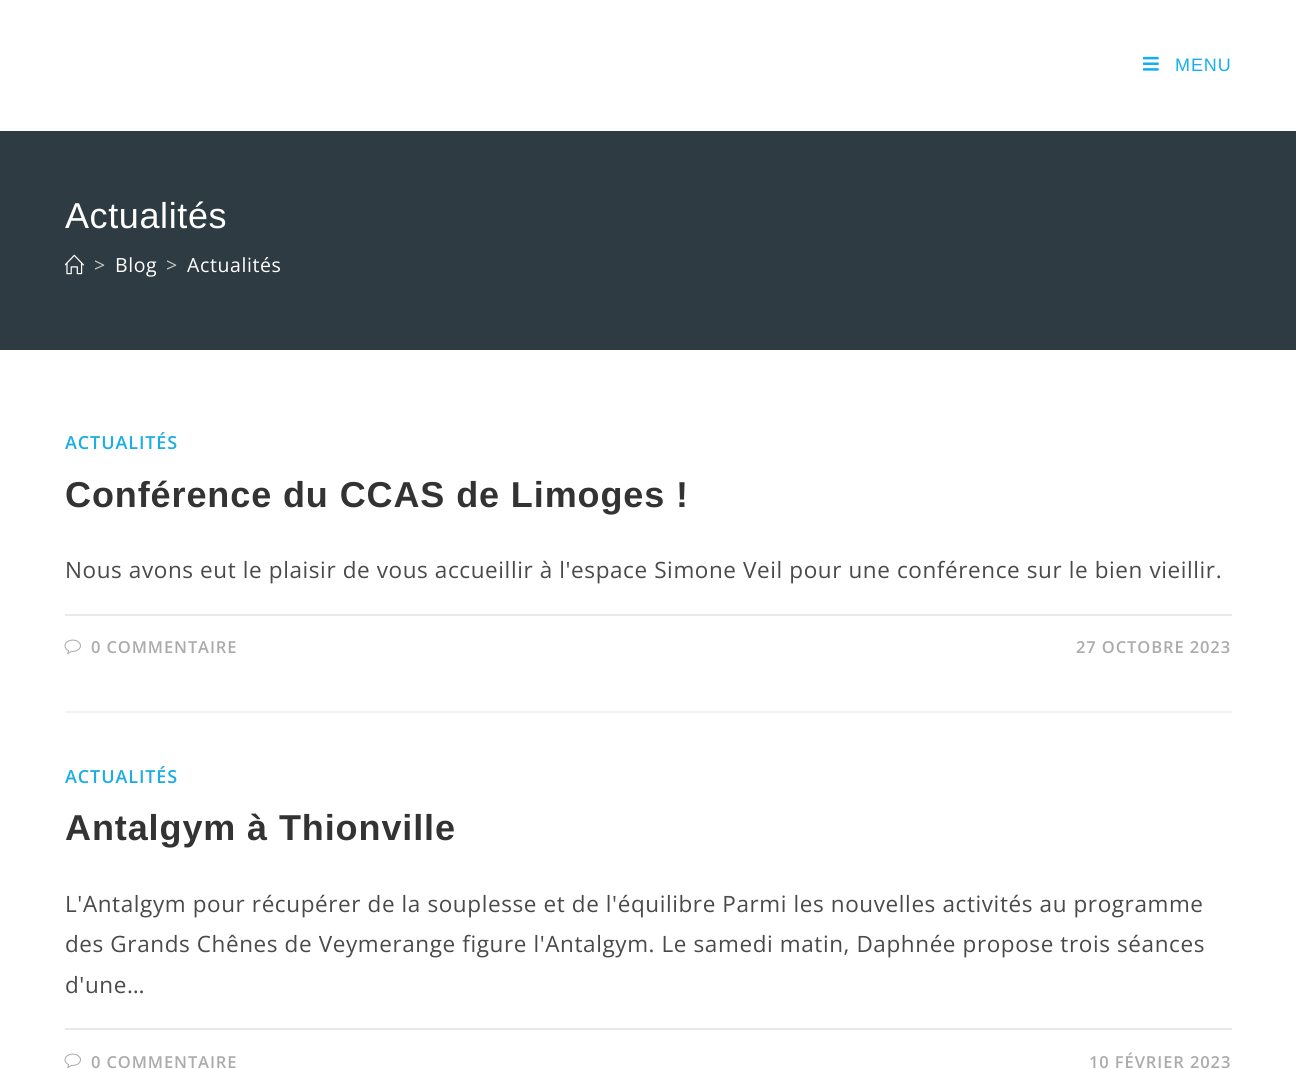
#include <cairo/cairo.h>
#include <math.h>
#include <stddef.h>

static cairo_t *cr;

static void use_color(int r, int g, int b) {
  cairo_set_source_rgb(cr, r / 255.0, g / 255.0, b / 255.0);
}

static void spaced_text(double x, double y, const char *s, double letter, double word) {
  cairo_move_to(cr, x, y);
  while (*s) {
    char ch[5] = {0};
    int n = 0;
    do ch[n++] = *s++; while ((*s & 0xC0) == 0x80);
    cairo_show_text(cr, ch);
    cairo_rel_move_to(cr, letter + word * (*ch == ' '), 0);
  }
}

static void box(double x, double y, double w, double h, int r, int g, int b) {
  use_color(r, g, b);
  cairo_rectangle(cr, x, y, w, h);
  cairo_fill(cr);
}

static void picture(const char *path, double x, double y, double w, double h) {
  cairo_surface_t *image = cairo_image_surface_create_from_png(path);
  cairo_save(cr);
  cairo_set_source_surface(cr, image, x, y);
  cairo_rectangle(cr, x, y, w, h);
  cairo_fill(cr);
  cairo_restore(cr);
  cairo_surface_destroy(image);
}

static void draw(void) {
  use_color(255, 255, 255);
  cairo_paint(cr);
  picture("img_01.png", 1143, 56, 16, 15);
  box(0, 131, 1296, 219, 46, 59, 66);
  picture("img_02.png", 65, 254, 19, 21);
  box(65, 711, 1167, 2, 241, 241, 241);
  box(65, 614, 1167, 2, 233, 233, 233);
  picture("img_03.png", 64, 639, 17, 15);
  box(65, 1028, 1167, 2, 233, 233, 233);
  picture("img_03.png", 64, 1053, 17, 15);
  cairo_select_font_face(cr, "Liberation Sans", CAIRO_FONT_SLANT_NORMAL, CAIRO_FONT_WEIGHT_NORMAL);
  cairo_set_font_size(cr, 18);
  use_color(19, 175, 240);
  spaced_text(1175, 71, "MENU", 0.9, 0);
  cairo_set_font_size(cr, 36);
  use_color(255, 255, 255);
  spaced_text(65, 228, "Actualités", 0.6, 0);
  cairo_select_font_face(cr, "Open Sans", CAIRO_FONT_SLANT_NORMAL, CAIRO_FONT_WEIGHT_NORMAL);
  cairo_set_font_size(cr, 19.5);
  use_color(198, 198, 198);
  spaced_text(94, 272, ">", 0.6, 0);
  use_color(255, 255, 255);
  spaced_text(115, 272, "Blog", 0.6, 0);
  use_color(198, 198, 198);
  spaced_text(166, 272, ">", 0.6, 0);
  use_color(255, 255, 255);
  spaced_text(187, 272, "Actualités", 0.6, 0);
  cairo_select_font_face(cr, "Open Sans SemiBold", CAIRO_FONT_SLANT_NORMAL, CAIRO_FONT_WEIGHT_NORMAL);
  cairo_set_font_size(cr, 18);
  use_color(27, 173, 228);
  spaced_text(65, 449, "ACTUALITÉS", 0.9, 0);
  cairo_select_font_face(cr, "Liberation Sans", CAIRO_FONT_SLANT_NORMAL, CAIRO_FONT_WEIGHT_BOLD);
  cairo_set_font_size(cr, 36);
  use_color(51, 51, 51);
  spaced_text(65, 507, "Conférence du CCAS de Limoges !", 0.9, 0);
  cairo_select_font_face(cr, "Open Sans", CAIRO_FONT_SLANT_NORMAL, CAIRO_FONT_WEIGHT_NORMAL);
  cairo_set_font_size(cr, 22.5);
  use_color(74, 74, 74);
  spaced_text(65, 578, "Nous avons eut le plaisir de vous accueillir à l'espace Simone Veil pour une conférence sur le bien vieillir.", 0.6, 0);
  cairo_select_font_face(cr, "Open Sans SemiBold", CAIRO_FONT_SLANT_NORMAL, CAIRO_FONT_WEIGHT_NORMAL);
  cairo_set_font_size(cr, 16.5);
  use_color(171, 171, 171);
  spaced_text(91, 653, "0 COMMENTAIRE", 0.9, 0);
  spaced_text(1076, 653, "27 OCTOBRE 2023", 0.9, 0);
  cairo_set_font_size(cr, 18);
  use_color(27, 173, 228);
  spaced_text(65, 783, "ACTUALITÉS", 0.9, 0);
  cairo_select_font_face(cr, "Liberation Sans", CAIRO_FONT_SLANT_NORMAL, CAIRO_FONT_WEIGHT_BOLD);
  cairo_set_font_size(cr, 36);
  use_color(51, 51, 51);
  spaced_text(65, 840, "Antalgym à Thionville", 0.9, 0);
  cairo_select_font_face(cr, "Open Sans", CAIRO_FONT_SLANT_NORMAL, CAIRO_FONT_WEIGHT_NORMAL);
  cairo_set_font_size(cr, 22.5);
  use_color(74, 74, 74);
  spaced_text(65, 912, "L'Antalgym pour récupérer de la souplesse et de l'équilibre Parmi les nouvelles activités au programme", 0.6, 0);
  spaced_text(65, 952, "des Grands Chênes de Veymerange figure l'Antalgym. Le samedi matin, Daphnée propose trois séances", 0.6, 0);
  spaced_text(65, 993, "d'une…", 0.6, 0);
  cairo_select_font_face(cr, "Open Sans SemiBold", CAIRO_FONT_SLANT_NORMAL, CAIRO_FONT_WEIGHT_NORMAL);
  cairo_set_font_size(cr, 16.5);
  use_color(171, 171, 171);
  spaced_text(91, 1068, "0 COMMENTAIRE", 0.9, 0);
  spaced_text(1089, 1068, "10 FÉVRIER 2023", 0.9, 0);
}

int main(void) {
  cairo_surface_t *surface = cairo_image_surface_create(CAIRO_FORMAT_RGB24, 1296, 1069);
  cr = cairo_create(surface);
  cairo_font_options_t *options = cairo_font_options_create();
  cairo_font_options_set_hint_metrics(options, CAIRO_HINT_METRICS_OFF);
  cairo_font_options_set_hint_style(options, CAIRO_HINT_STYLE_NONE);
  cairo_set_font_options(cr, options);
  cairo_set_miter_limit(cr, 4);
  draw();
  cairo_surface_write_to_png(surface, "out.png");
  cairo_font_options_destroy(options);
  cairo_destroy(cr);
  cairo_surface_destroy(surface);
  return 0;
}
